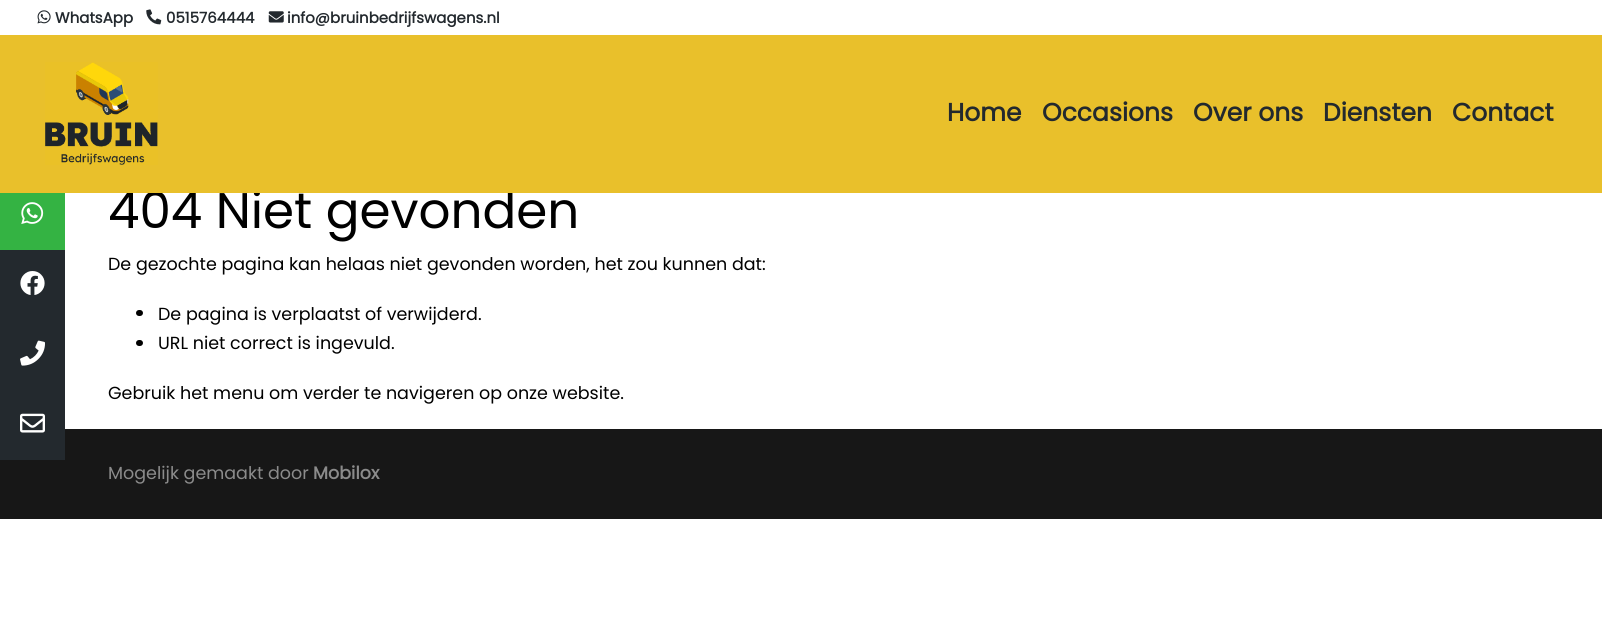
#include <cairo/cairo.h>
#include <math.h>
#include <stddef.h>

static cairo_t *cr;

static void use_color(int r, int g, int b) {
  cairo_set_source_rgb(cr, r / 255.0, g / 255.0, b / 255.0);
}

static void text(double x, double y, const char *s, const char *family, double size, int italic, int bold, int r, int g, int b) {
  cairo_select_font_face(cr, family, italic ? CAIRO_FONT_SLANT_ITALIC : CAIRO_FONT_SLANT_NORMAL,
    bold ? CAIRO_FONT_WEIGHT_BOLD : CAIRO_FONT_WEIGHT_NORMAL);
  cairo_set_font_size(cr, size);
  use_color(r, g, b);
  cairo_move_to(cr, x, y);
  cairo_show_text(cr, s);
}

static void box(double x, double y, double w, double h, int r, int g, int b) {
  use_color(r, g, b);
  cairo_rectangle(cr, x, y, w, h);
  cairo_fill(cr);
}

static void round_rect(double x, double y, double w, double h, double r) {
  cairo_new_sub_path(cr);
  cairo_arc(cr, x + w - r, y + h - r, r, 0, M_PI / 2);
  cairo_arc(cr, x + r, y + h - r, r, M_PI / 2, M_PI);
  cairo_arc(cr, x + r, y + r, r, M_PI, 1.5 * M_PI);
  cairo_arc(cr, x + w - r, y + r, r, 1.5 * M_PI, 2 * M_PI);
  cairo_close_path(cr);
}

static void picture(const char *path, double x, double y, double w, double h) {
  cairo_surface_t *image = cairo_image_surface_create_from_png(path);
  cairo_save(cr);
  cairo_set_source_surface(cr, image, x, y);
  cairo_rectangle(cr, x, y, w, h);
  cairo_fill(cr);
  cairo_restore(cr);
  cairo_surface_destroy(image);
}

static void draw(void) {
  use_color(255, 255, 255);
  cairo_paint(cr);
  picture("img_01.png", 37, 10, 14, 14);
  picture("img_02.png", 146, 9, 16, 16);
  picture("img_03.png", 268, 11, 16, 12);
  box(0, 193, 65, 57, 52, 179, 67);
  picture("img_05.png", 21, 202, 23, 22);
  box(0, 429, 1602, 90, 23, 23, 23);
  box(0, 250, 65, 210, 35, 41, 46);
  picture("img_06.png", 20, 271, 25, 24);
  picture("img_07.png", 20, 340, 25, 26);
  picture("img_08.png", 20, 413, 25, 20);
  use_color(0, 0, 0);
  round_rect(136, 310, 7, 6, 3);
  cairo_fill(cr);
  round_rect(136, 340, 7, 6, 3);
  cairo_fill(cr);
  text(55, 23, "WhatsApp", "Poppins", 15, 0, 1, 35, 41, 46);
  text(166, 23, "0515764444", "Poppins", 15, 0, 1, 35, 41, 46);
  text(287, 23, "info@bruinbedrijfswagens.nl", "Poppins", 15, 0, 1, 35, 41, 46);
  text(108, 228, "404 Niet gevonden", "Poppins", 50, 0, 0, 0, 0, 0);
  box(0, 35, 1602, 158, 233, 192, 43);
  text(1323, 121, "Diensten", "Poppins", 25, 0, 1, 35, 41, 46);
  text(1452, 121, "Contact", "Poppins", 25, 0, 1, 35, 41, 46);
  text(1193, 121, "Over ons", "Poppins", 25, 0, 1, 35, 41, 46);
  text(1042, 121, "Occasions", "Poppins", 25, 0, 1, 35, 41, 46);
  text(947, 121, "Home", "Poppins", 25, 0, 1, 35, 41, 46);
  picture("img_04.png", 45, 62, 113, 103);
  text(108, 270, "De gezochte pagina kan helaas niet gevonden worden, het zou kunnen dat:", "Poppins", 17.5, 0, 0, 0, 0, 0);
  text(158, 320, "De pagina is verplaatst of verwijderd.", "Poppins", 17.5, 0, 0, 0, 0, 0);
  text(158, 349, "URL niet correct is ingevuld.", "Poppins", 17.5, 0, 0, 0, 0, 0);
  text(108, 399, "Gebruik het menu om verder te navigeren op onze website.", "Poppins", 17.5, 0, 0, 0, 0, 0);
  text(108, 479, "Mogelijk gemaakt door", "Poppins", 17.5, 0, 0, 139, 139, 139);
  text(313, 479, "Mobilox", "Poppins", 17.5, 0, 1, 139, 139, 139);
}

int main(void) {
  cairo_surface_t *surface = cairo_image_surface_create(CAIRO_FORMAT_RGB24, 1602, 640);
  cr = cairo_create(surface);
  cairo_font_options_t *options = cairo_font_options_create();
  cairo_font_options_set_hint_metrics(options, CAIRO_HINT_METRICS_OFF);
  cairo_font_options_set_hint_style(options, CAIRO_HINT_STYLE_NONE);
  cairo_set_font_options(cr, options);
  cairo_set_miter_limit(cr, 4);
  draw();
  cairo_surface_write_to_png(surface, "out.png");
  cairo_font_options_destroy(options);
  cairo_destroy(cr);
  cairo_surface_destroy(surface);
  return 0;
}
